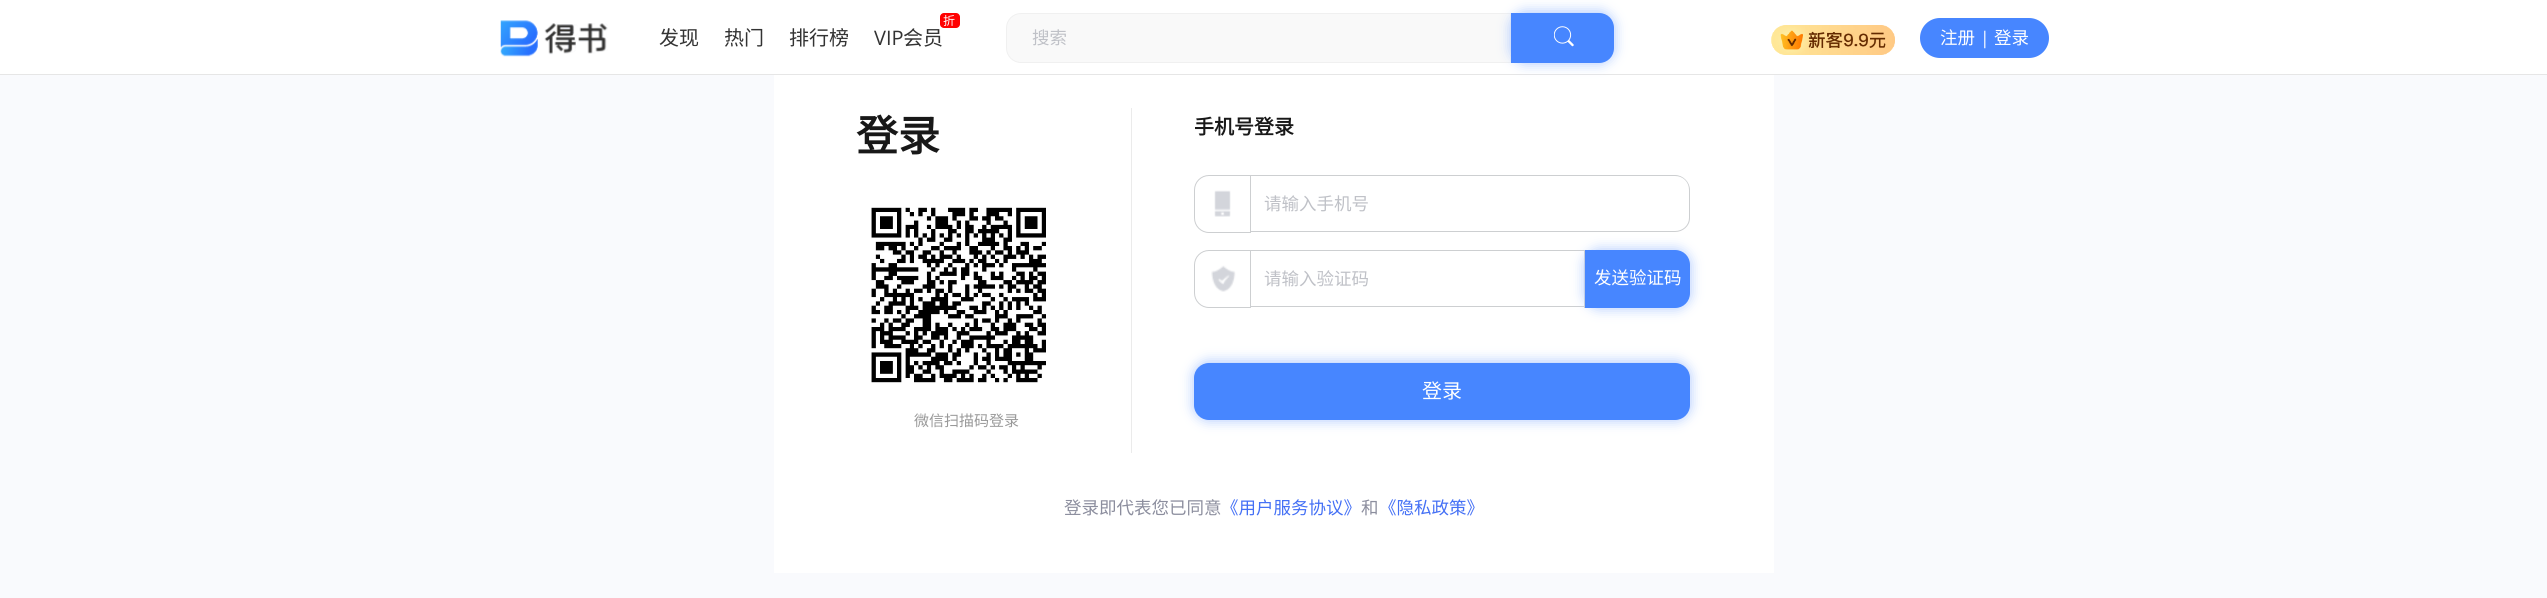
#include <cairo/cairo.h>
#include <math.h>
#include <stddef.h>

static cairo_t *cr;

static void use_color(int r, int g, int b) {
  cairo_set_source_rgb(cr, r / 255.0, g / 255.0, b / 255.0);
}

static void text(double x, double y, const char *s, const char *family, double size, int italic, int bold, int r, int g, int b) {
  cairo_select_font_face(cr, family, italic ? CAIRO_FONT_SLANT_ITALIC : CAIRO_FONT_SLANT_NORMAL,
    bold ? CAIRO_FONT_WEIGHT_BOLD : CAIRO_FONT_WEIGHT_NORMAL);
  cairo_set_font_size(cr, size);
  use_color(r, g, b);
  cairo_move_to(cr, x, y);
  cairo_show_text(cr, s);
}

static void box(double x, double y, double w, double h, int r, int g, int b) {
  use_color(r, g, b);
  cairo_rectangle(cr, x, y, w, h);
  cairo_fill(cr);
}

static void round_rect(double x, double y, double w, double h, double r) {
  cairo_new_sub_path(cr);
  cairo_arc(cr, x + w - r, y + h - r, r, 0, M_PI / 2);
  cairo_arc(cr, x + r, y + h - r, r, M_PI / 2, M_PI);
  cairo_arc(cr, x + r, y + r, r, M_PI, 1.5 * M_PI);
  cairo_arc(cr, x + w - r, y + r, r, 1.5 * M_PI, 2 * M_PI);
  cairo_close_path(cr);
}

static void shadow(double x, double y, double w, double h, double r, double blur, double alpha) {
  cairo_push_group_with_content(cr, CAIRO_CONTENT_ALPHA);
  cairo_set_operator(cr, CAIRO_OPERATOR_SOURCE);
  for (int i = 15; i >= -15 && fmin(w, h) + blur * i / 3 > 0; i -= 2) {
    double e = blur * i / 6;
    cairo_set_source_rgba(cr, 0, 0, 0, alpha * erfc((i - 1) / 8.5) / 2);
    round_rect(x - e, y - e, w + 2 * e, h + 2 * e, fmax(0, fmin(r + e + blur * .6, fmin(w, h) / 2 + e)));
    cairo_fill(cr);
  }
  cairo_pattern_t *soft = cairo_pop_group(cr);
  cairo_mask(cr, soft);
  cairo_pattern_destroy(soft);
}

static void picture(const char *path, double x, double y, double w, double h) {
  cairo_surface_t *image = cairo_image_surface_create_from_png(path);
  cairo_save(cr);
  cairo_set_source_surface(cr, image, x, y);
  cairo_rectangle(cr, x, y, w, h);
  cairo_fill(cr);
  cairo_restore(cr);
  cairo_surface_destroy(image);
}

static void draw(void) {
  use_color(249, 250, 253);
  cairo_paint(cr);
  box(0, 0, 2547, 74, 255, 255, 255);
  box(0, 74, 2547, 1, 230, 230, 230);
  picture("img_01.png", 500, 20, 108, 37);
  use_color(255, 0, 0);
  round_rect(940, 13, 20, 15, 4);
  cairo_fill(cr);
  use_color(249, 249, 249);
  cairo_new_path(cr);
  cairo_move_to(cr, 1021, 13.5);
  cairo_line_to(cr, 1510.5, 13.5);
  cairo_line_to(cr, 1510.5, 62.5);
  cairo_line_to(cr, 1021, 62.5);
  cairo_curve_to(cr, 1013, 62.5, 1006.5, 56, 1006.5, 48);
  cairo_line_to(cr, 1006.5, 28);
  cairo_curve_to(cr, 1006.5, 20, 1013, 13.5, 1021, 13.5);
  cairo_close_path(cr);
  cairo_fill_preserve(cr);
  use_color(240, 240, 240);
  cairo_set_line_width(cr, 1);
  cairo_stroke(cr);
  box(774, 75, 1000, 498, 255, 255, 255);
  use_color(181, 206, 255);
  shadow(1510, 11, 105, 53, 16, 6, 1);
  use_color(71, 134, 255);
  cairo_new_path(cr);
  cairo_move_to(cr, 1511, 13);
  cairo_line_to(cr, 1599, 13);
  cairo_curve_to(cr, 1607.5, 13, 1614, 19.5, 1614, 28);
  cairo_line_to(cr, 1614, 48);
  cairo_curve_to(cr, 1614, 56.5, 1607.5, 63, 1599, 63);
  cairo_line_to(cr, 1511, 63);
  cairo_close_path(cr);
  cairo_fill(cr);
  picture("img_02.png", 1554, 26, 20, 21);
  picture("img_03.png", 1771, 25, 124, 30);
  round_rect(1920, 18, 129, 40, 20);
  cairo_fill(cr);
  picture("img_04.png", 871, 207, 175, 176);
  box(1131, 108, 1, 345, 235, 235, 235);
  picture("img_05.png", 1214, 190, 17, 27);
  cairo_new_path(cr);
  cairo_move_to(cr, 1209, 175.5);
  cairo_line_to(cr, 1250.5, 175.5);
  cairo_line_to(cr, 1250.5, 232.5);
  cairo_line_to(cr, 1209, 232.5);
  cairo_curve_to(cr, 1201, 232.5, 1194.5, 226, 1194.5, 218);
  cairo_line_to(cr, 1194.5, 190);
  cairo_curve_to(cr, 1194.5, 182, 1201, 175.5, 1209, 175.5);
  cairo_close_path(cr);
  use_color(205, 207, 209);
  cairo_stroke(cr);
  cairo_set_fill_rule(cr, CAIRO_FILL_RULE_EVEN_ODD);
  cairo_new_path(cr);
  cairo_move_to(cr, 1251, 175);
  cairo_line_to(cr, 1675, 175);
  cairo_curve_to(cr, 1683, 175, 1690, 182, 1690, 190);
  cairo_line_to(cr, 1690, 218);
  cairo_curve_to(cr, 1690, 226, 1683, 232, 1675, 232);
  cairo_line_to(cr, 1251, 232);
  cairo_close_path(cr);
  cairo_move_to(cr, 1251, 176);
  cairo_line_to(cr, 1675, 176);
  cairo_curve_to(cr, 1683, 176, 1689, 182, 1689, 190);
  cairo_line_to(cr, 1689, 218);
  cairo_curve_to(cr, 1689, 225, 1683, 231, 1675, 231);
  cairo_line_to(cr, 1251, 231);
  cairo_close_path(cr);
  cairo_fill(cr);
  picture("img_06.png", 1211, 265, 25, 27);
  cairo_new_path(cr);
  cairo_move_to(cr, 1209, 250.5);
  cairo_line_to(cr, 1250.5, 250.5);
  cairo_line_to(cr, 1250.5, 307.5);
  cairo_line_to(cr, 1209, 307.5);
  cairo_curve_to(cr, 1201, 307.5, 1194.5, 301, 1194.5, 293);
  cairo_line_to(cr, 1194.5, 265);
  cairo_curve_to(cr, 1194.5, 257, 1201, 250.5, 1209, 250.5);
  cairo_close_path(cr);
  cairo_stroke(cr);
  box(1251, 250, 334, 1, 205, 207, 209);
  box(1584, 250, 1, 58, 205, 207, 209);
  box(1251, 306, 334, 1, 205, 207, 209);
  use_color(181, 206, 255);
  shadow(1584, 249, 107, 60, 16, 6, 1);
  use_color(71, 134, 255);
  cairo_new_path(cr);
  cairo_move_to(cr, 1585, 250);
  cairo_line_to(cr, 1675, 250);
  cairo_curve_to(cr, 1683.5, 250, 1690, 256.5, 1690, 265);
  cairo_line_to(cr, 1690, 293);
  cairo_curve_to(cr, 1690, 301.5, 1683.5, 308, 1675, 308);
  cairo_line_to(cr, 1585, 308);
  cairo_close_path(cr);
  cairo_fill(cr);
  use_color(181, 206, 255);
  shadow(1193, 361, 498, 60, 16, 6, 1);
  use_color(71, 134, 255);
  round_rect(1194, 363, 496, 57, 15);
  cairo_fill(cr);
  text(659, 45, "发现", "Noto Sans CJK SC", 20, 0, 0, 51, 51, 51);
  text(724, 45, "热门", "Noto Sans CJK SC", 20, 0, 0, 51, 51, 51);
  text(789, 45, "排行榜", "Noto Sans CJK SC", 20, 0, 0, 51, 51, 51);
  text(943, 25, "折", "Noto Sans CJK SC", 12, 0, 0, 255, 255, 255);
  text(874, 45, "VIP", "Open Sans", 20, 0, 0, 51, 51, 51);
  text(903, 45, "会员", "Noto Sans CJK SC", 20, 0, 0, 51, 51, 51);
  text(1032, 44, "搜索", "Noto Sans CJK SC", 17.5, 0, 0, 191, 193, 199);
  text(1940, 44, "注册", "Noto Sans CJK SC", 17.5, 0, 0, 255, 255, 255);
  text(1980, 44, "|", "Open Sans", 17.5, 0, 0, 255, 255, 255);
  text(1994, 44, "登录", "Noto Sans CJK SC", 17.5, 0, 0, 255, 255, 255);
  text(856, 151, "登录", "Noto Sans CJK SC", 42, 0, 1, 24, 24, 24);
  text(914, 426, "微信扫描码登录", "Noto Sans CJK SC", 15, 0, 0, 153, 153, 153);
  text(1194, 134, "手机号登录", "Noto Sans CJK SC", 20, 0, 1, 24, 24, 24);
  text(1264, 210, "请输入手机号", "Noto Sans CJK SC", 17.5, 0, 0, 191, 193, 199);
  text(1264, 285, "请输入验证码", "Noto Sans CJK SC", 17.5, 0, 0, 191, 193, 199);
  text(1594, 284, "发送验证码", "Noto Sans CJK SC", 17.5, 0, 0, 255, 255, 255);
  text(1422, 398, "登录", "Noto Sans CJK SC", 20, 0, 0, 255, 255, 255);
  text(1064, 514, "登录即代表您已同意", "Noto Sans CJK SC", 17.5, 0, 0, 140, 142, 158);
  text(1221, 514, "《用户服务协议》", "Noto Sans CJK SC", 17.5, 0, 0, 68, 112, 245);
  text(1361, 514, "和", "Noto Sans CJK SC", 17.5, 0, 0, 140, 142, 158);
  text(1379, 514, "《隐私政策》", "Noto Sans CJK SC", 17.5, 0, 0, 68, 112, 245);
}

int main(void) {
  cairo_surface_t *surface = cairo_image_surface_create(CAIRO_FORMAT_RGB24, 2547, 598);
  cr = cairo_create(surface);
  cairo_font_options_t *options = cairo_font_options_create();
  cairo_font_options_set_hint_metrics(options, CAIRO_HINT_METRICS_OFF);
  cairo_font_options_set_hint_style(options, CAIRO_HINT_STYLE_NONE);
  cairo_set_font_options(cr, options);
  cairo_set_miter_limit(cr, 4);
  draw();
  cairo_surface_write_to_png(surface, "out.png");
  cairo_font_options_destroy(options);
  cairo_destroy(cr);
  cairo_surface_destroy(surface);
  return 0;
}
